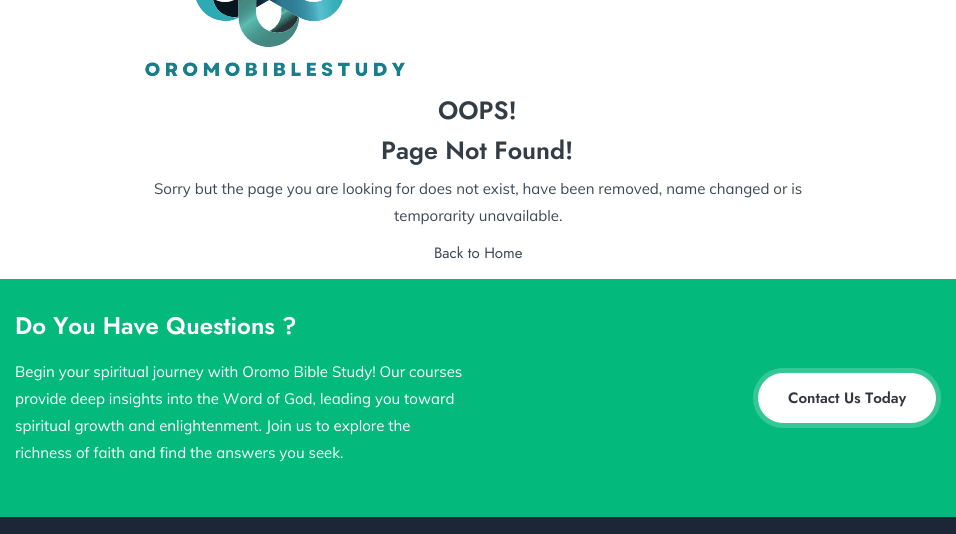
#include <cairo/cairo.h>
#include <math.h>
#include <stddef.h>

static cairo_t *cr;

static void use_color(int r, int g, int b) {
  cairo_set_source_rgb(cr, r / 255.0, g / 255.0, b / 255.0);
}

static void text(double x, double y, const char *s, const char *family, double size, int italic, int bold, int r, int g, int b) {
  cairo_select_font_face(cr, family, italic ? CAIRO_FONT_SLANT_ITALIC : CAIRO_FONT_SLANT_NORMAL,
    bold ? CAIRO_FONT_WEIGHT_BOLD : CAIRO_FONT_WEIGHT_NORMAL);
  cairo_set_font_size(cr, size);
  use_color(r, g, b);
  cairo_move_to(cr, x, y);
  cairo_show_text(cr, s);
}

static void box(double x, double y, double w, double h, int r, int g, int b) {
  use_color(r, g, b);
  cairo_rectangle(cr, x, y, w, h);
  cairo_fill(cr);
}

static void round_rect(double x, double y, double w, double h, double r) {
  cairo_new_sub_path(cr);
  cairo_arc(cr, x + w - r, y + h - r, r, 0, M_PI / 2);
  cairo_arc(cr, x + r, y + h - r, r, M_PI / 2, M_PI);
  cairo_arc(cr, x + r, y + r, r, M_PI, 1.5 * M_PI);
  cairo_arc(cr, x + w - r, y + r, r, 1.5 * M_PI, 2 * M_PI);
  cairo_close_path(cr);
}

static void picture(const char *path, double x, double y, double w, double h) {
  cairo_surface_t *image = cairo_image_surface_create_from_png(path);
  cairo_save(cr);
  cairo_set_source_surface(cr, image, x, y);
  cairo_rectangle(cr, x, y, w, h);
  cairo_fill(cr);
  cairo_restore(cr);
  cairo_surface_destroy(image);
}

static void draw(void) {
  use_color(255, 255, 255);
  cairo_paint(cr);
  picture("img_01.png", 145, 0, 260, 77);
  box(0, 279, 956, 238, 3, 185, 124);
  round_rect(755.5, 370.5, 183, 55, 27.5);
  use_color(53, 199, 150);
  cairo_set_line_width(cr, 5);
  cairo_stroke(cr);
  use_color(255, 255, 255);
  round_rect(758, 373, 178, 50, 25);
  cairo_fill(cr);
  box(0, 517, 956, 17, 29, 38, 54);
  text(438, 119, "OOPS!", "Jost SemiBold", 25, 0, 0, 51, 61, 70);
  text(381, 159, "Page Not Found!", "Jost SemiBold", 25, 0, 0, 51, 61, 70);
  text(154, 194, "Sorry but the page you are looking for does not exist, have been removed, name changed or is", "Muli", 15, 0, 0, 60, 72, 82);
  text(394, 221, "temporarity unavailable.", "Muli", 15, 0, 0, 60, 72, 82);
  text(434, 258, "Back to Home", "Jost", 15, 0, 0, 60, 72, 82);
  text(15, 334, "Do You Have Questions ?", "Jost SemiBold", 24, 0, 0, 255, 255, 255);
  text(15, 377, "Begin your spiritual journey with Oromo Bible Study! Our courses", "Muli", 15, 0, 0, 255, 255, 255);
  text(15, 404, "provide deep insights into the Word of God, leading you toward", "Muli", 15, 0, 0, 255, 255, 255);
  text(15, 431, "spiritual growth and enlightenment. Join us to explore the", "Muli", 15, 0, 0, 255, 255, 255);
  text(15, 458, "richness of faith and find the answers you seek.", "Muli", 15, 0, 0, 255, 255, 255);
  text(788, 403, "Contact Us Today", "Jost SemiBold", 15, 0, 0, 51, 54, 64);
}

int main(void) {
  cairo_surface_t *surface = cairo_image_surface_create(CAIRO_FORMAT_RGB24, 956, 534);
  cr = cairo_create(surface);
  cairo_font_options_t *options = cairo_font_options_create();
  cairo_font_options_set_hint_metrics(options, CAIRO_HINT_METRICS_OFF);
  cairo_font_options_set_hint_style(options, CAIRO_HINT_STYLE_NONE);
  cairo_set_font_options(cr, options);
  cairo_set_miter_limit(cr, 4);
  draw();
  cairo_surface_write_to_png(surface, "out.png");
  cairo_font_options_destroy(options);
  cairo_destroy(cr);
  cairo_surface_destroy(surface);
  return 0;
}
